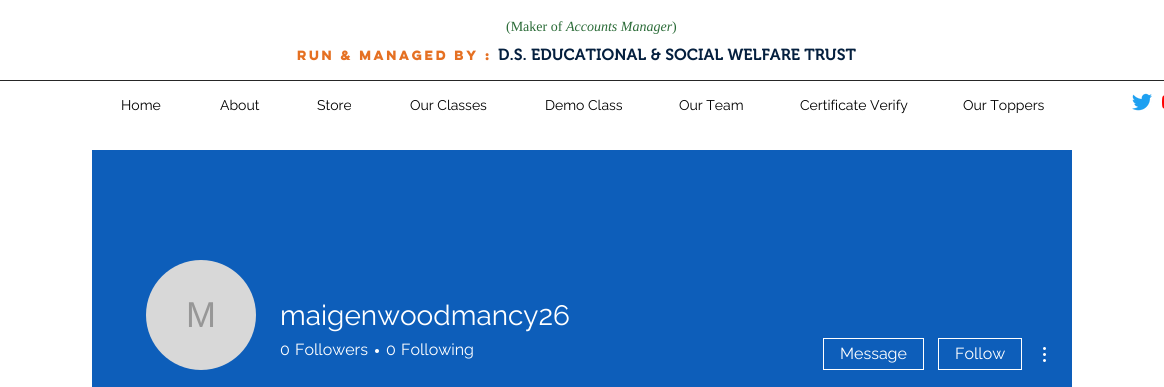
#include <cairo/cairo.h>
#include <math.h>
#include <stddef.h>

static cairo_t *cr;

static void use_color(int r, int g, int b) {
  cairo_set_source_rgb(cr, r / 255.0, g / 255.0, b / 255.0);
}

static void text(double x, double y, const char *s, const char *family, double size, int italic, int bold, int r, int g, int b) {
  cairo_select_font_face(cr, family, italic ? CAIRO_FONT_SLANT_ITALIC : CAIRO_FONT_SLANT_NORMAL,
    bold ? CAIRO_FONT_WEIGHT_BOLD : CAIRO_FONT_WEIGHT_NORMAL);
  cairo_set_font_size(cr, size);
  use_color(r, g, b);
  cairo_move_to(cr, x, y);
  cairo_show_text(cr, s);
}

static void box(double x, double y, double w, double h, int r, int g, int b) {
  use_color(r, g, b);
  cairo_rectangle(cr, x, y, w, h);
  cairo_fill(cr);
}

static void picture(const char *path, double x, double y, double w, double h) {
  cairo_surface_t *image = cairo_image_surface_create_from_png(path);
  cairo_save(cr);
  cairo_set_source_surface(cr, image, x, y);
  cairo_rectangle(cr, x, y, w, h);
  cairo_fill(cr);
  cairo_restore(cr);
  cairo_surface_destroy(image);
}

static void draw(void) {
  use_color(255, 255, 255);
  cairo_paint(cr);
  box(0, 80, 1164, 1, 38, 38, 38);
  picture("img_01.png", 1132, 93, 20, 18);
  picture("img_02.png", 1162, 95, 2, 14);
  box(92, 150, 980, 237, 13, 94, 186);
  use_color(216, 216, 216);
  cairo_arc(cr, 201, 315, 55, 0, 2 * M_PI);
  cairo_fill(cr);
  use_color(255, 255, 255);
  cairo_arc(cr, 377, 351, 2, 0, 2 * M_PI);
  cairo_fill(cr);
  cairo_rectangle(cr, 823.5, 338.5, 100, 31);
  cairo_set_line_width(cr, 1);
  cairo_stroke(cr);
  cairo_rectangle(cr, 938.5, 338.5, 83, 31);
  cairo_stroke(cr);
  picture("img_03.png", 1043, 347, 3, 15);
  text(506, 31, "(Maker of", "Liberation Serif", 14, 0, 0, 42, 107, 55);
  text(566, 31, "Accounts Manager", "Liberation Serif", 14, 1, 0, 42, 107, 55);
  text(672, 31, ")", "Liberation Serif", 14, 0, 0, 42, 107, 55);
  text(297, 60, "run & managed by :", "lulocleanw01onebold", 12, 0, 1, 229, 112, 34);
  text(498, 60, "D.S. EDUCATIONAL & SOCIAL WELFARE TRUST", "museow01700 SemiBold", 16, 0, 0, 4, 31, 62);
  text(121, 110, "Home", "Raleway", 14, 0, 0, 0, 0, 0);
  text(220, 110, "About", "Raleway", 14, 0, 0, 0, 0, 0);
  text(317, 110, "Store", "Raleway", 14, 0, 0, 0, 0, 0);
  text(410, 110, "Our Classes", "Raleway", 14, 0, 0, 0, 0, 0);
  text(545, 110, "Demo Class", "Raleway", 14, 0, 0, 0, 0, 0);
  text(679, 110, "Our Team", "Raleway", 14, 0, 0, 0, 0, 0);
  text(800, 110, "Certificate Verify", "Raleway", 14, 0, 0, 0, 0, 0);
  text(963, 110, "Our Toppers", "Raleway", 14, 0, 0, 0, 0, 0);
  text(186, 327, "M", "Liberation Sans", 36, 0, 0, 151, 151, 151);
  text(280, 325, "maigenwoodmancy26", "Raleway", 28, 0, 0, 255, 255, 255);
  text(280, 355, "0", "Raleway", 16, 0, 0, 255, 255, 255);
  text(295, 355, "Followers", "Raleway", 16, 0, 0, 255, 255, 255);
  text(386, 355, "0", "Raleway", 16, 0, 0, 255, 255, 255);
  text(401, 355, "Following", "Raleway", 16, 0, 0, 255, 255, 255);
  text(840, 359, "Message", "Raleway", 16, 0, 0, 255, 255, 255);
  text(955, 359, "Follow", "Raleway", 16, 0, 0, 255, 255, 255);
}

int main(void) {
  cairo_surface_t *surface = cairo_image_surface_create(CAIRO_FORMAT_RGB24, 1164, 387);
  cr = cairo_create(surface);
  cairo_font_options_t *options = cairo_font_options_create();
  cairo_font_options_set_hint_metrics(options, CAIRO_HINT_METRICS_OFF);
  cairo_font_options_set_hint_style(options, CAIRO_HINT_STYLE_NONE);
  cairo_set_font_options(cr, options);
  cairo_set_miter_limit(cr, 4);
  draw();
  cairo_surface_write_to_png(surface, "out.png");
  cairo_font_options_destroy(options);
  cairo_destroy(cr);
  cairo_surface_destroy(surface);
  return 0;
}
